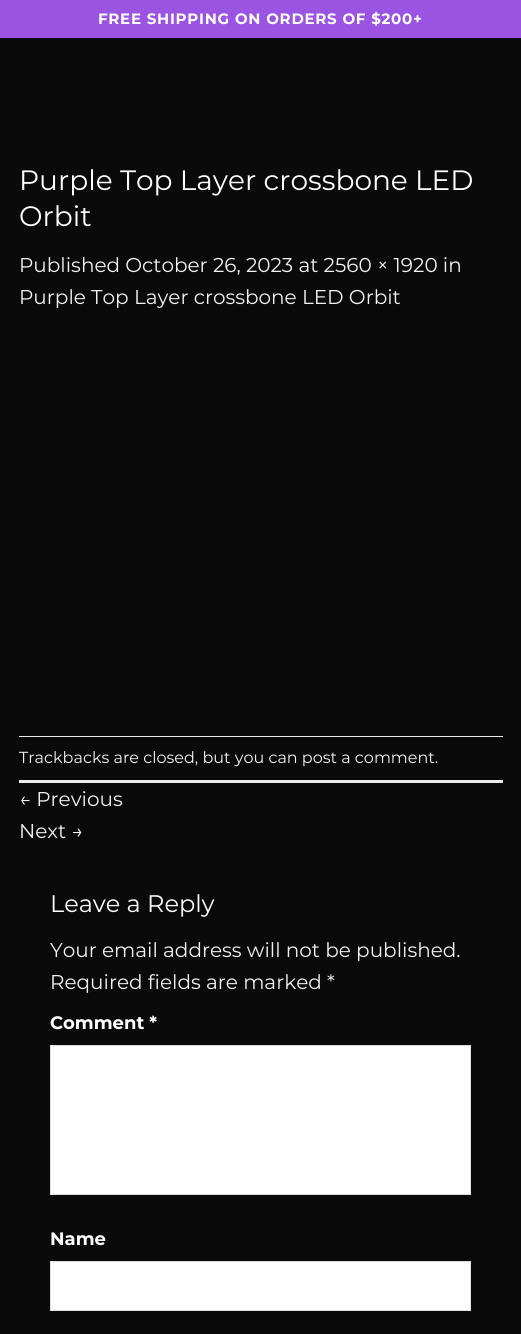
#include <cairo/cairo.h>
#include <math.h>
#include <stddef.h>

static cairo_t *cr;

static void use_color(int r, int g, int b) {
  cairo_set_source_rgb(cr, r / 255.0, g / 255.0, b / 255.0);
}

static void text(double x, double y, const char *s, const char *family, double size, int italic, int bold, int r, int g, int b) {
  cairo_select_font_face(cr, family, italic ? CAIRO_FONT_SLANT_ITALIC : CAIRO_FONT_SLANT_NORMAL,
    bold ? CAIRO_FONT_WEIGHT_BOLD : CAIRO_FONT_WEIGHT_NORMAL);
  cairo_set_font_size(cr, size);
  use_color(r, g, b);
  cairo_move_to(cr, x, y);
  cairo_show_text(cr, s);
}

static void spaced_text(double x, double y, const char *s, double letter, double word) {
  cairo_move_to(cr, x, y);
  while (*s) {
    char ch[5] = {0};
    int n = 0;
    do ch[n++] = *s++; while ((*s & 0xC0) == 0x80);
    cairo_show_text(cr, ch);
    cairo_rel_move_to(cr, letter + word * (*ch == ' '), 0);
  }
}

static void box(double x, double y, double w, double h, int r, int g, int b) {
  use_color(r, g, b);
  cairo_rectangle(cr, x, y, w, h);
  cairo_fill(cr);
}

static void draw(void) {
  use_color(10, 10, 10);
  cairo_paint(cr);
  box(0, 0, 521, 38, 155, 83, 226);
  box(19, 736, 484, 1, 236, 236, 236);
  box(19, 780, 484, 3, 236, 236, 236);
  use_color(255, 255, 255);
  cairo_rectangle(cr, 50.5, 1045.5, 420, 149);
  cairo_fill_preserve(cr);
  use_color(221, 221, 221);
  cairo_set_line_width(cr, 1);
  cairo_stroke(cr);
  use_color(255, 255, 255);
  cairo_rectangle(cr, 50.5, 1261.5, 420, 49);
  cairo_fill_preserve(cr);
  use_color(221, 221, 221);
  cairo_stroke(cr);
  cairo_select_font_face(cr, "Montserrat", CAIRO_FONT_SLANT_NORMAL, CAIRO_FONT_WEIGHT_BOLD);
  cairo_set_font_size(cr, 15);
  use_color(255, 255, 255);
  spaced_text(98, 24, "FREE SHIPPING ON ORDERS OF $200+", 0.75, 0);
  text(19, 190, "Purple Top Layer crossbone LED", "Montserrat", 28, 0, 0, 255, 255, 255);
  text(19, 226, "Orbit", "Montserrat", 28, 0, 0, 255, 255, 255);
  text(19, 272, "Published October 26, 2023 at 2560 × 1920 in", "Montserrat", 20, 0, 0, 241, 241, 241);
  text(19, 304, "Purple Top Layer crossbone LED Orbit", "Montserrat", 20, 0, 0, 241, 241, 241);
  text(19, 763, "Trackbacks are closed, but you can post a comment.", "Montserrat", 16, 0, 0, 241, 241, 241);
  text(19, 806, "← Previous", "Montserrat", 20, 0, 0, 241, 241, 241);
  text(19, 838, "Next →", "Montserrat", 20, 0, 0, 241, 241, 241);
  text(50, 912, "Leave a Reply", "Montserrat", 24, 0, 0, 255, 255, 255);
  text(50, 957, "Your email address will not be published.", "Montserrat", 20, 0, 0, 241, 241, 241);
  text(50, 989, "Required fields are marked *", "Montserrat", 20, 0, 0, 241, 241, 241);
  text(50, 1029, "Comment *", "Montserrat", 18, 0, 1, 255, 255, 255);
  text(50, 1245, "Name", "Montserrat", 18, 0, 1, 255, 255, 255);
}

int main(void) {
  cairo_surface_t *surface = cairo_image_surface_create(CAIRO_FORMAT_RGB24, 521, 1334);
  cr = cairo_create(surface);
  cairo_font_options_t *options = cairo_font_options_create();
  cairo_font_options_set_hint_metrics(options, CAIRO_HINT_METRICS_OFF);
  cairo_font_options_set_hint_style(options, CAIRO_HINT_STYLE_NONE);
  cairo_set_font_options(cr, options);
  cairo_set_miter_limit(cr, 4);
  draw();
  cairo_surface_write_to_png(surface, "out.png");
  cairo_font_options_destroy(options);
  cairo_destroy(cr);
  cairo_surface_destroy(surface);
  return 0;
}
